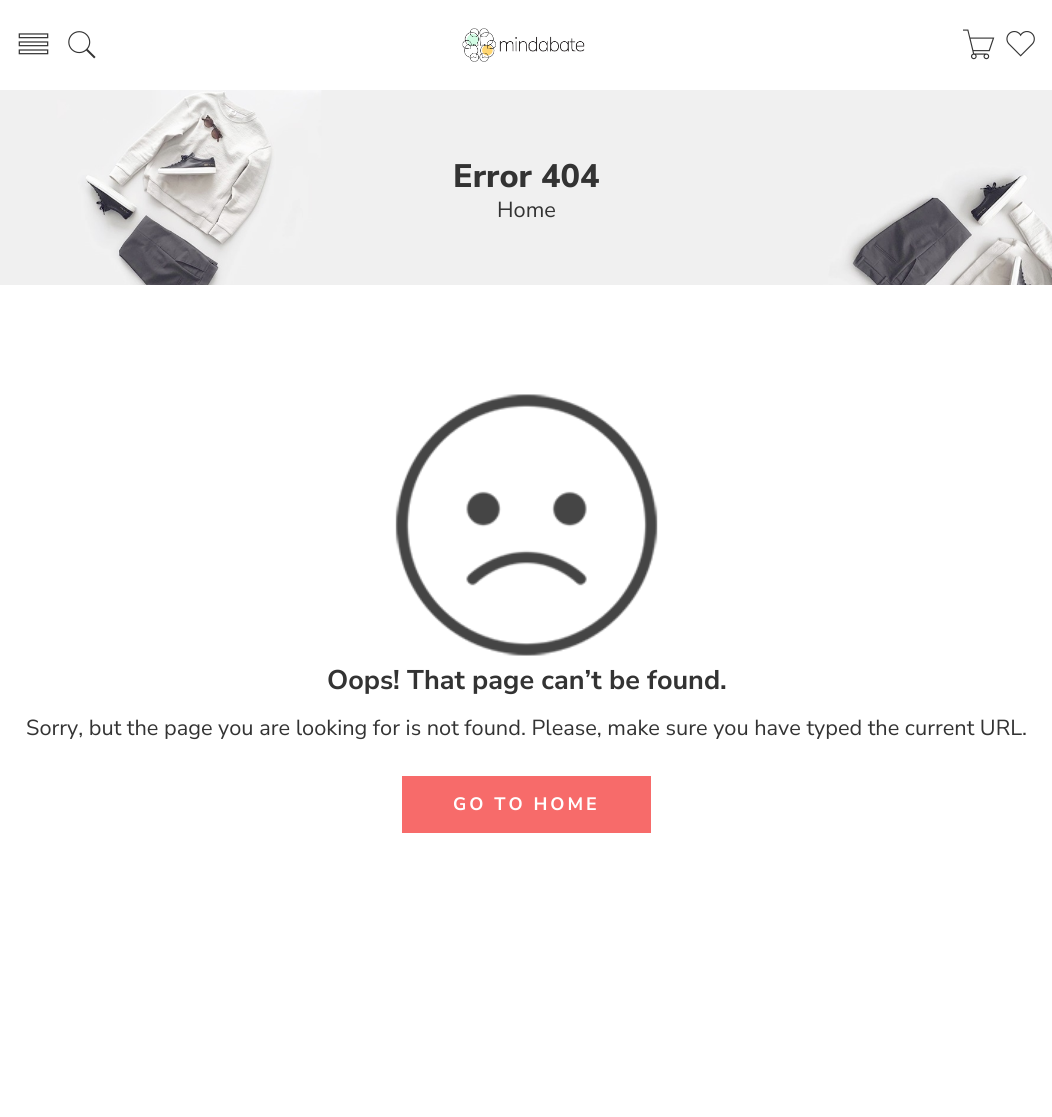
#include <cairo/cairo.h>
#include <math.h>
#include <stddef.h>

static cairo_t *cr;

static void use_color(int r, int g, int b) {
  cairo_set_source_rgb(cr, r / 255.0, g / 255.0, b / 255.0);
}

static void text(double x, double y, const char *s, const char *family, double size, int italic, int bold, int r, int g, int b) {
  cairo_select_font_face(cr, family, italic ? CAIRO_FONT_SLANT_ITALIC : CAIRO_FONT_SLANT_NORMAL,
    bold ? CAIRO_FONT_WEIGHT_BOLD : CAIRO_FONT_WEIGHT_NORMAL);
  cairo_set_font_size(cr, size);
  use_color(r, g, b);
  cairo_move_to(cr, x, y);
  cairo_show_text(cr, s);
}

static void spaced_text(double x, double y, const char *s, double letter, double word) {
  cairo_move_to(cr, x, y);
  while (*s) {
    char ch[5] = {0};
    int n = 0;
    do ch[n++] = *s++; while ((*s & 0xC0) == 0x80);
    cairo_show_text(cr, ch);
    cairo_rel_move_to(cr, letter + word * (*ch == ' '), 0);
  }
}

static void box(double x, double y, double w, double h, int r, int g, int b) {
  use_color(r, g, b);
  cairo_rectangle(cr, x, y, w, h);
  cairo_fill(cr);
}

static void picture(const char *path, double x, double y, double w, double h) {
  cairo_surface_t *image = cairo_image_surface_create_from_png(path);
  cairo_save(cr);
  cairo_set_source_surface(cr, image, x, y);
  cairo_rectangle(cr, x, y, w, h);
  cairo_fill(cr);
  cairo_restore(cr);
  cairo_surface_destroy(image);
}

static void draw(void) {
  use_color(255, 255, 255);
  cairo_paint(cr);
  picture("img_01.png", 18, 33, 31, 22);
  picture("img_02.png", 68, 31, 28, 28);
  picture("img_03.png", 462, 28, 123, 34);
  picture("img_04.png", 963, 29, 32, 31);
  picture("img_05.png", 1006, 31, 29, 26);
  picture("img_06.png", 0, 90, 1052, 195);
  picture("img_07.png", 395, 394, 263, 262);
  box(402, 776, 249, 57, 247, 107, 106);
  text(453, 187, "Error 404", "Nunito Sans ExtraBold", 32.5, 0, 0, 51, 51, 51);
  text(497, 217, "Home", "Nunito Sans", 21.75, 0, 0, 51, 51, 51);
  text(327, 689, "Oops! That page can’t be found.", "Nunito Sans", 27, 0, 1, 51, 51, 51);
  text(26, 735, "Sorry, but the page you are looking for is not found. Please, make sure you have typed the current URL.", "Nunito Sans", 21.75, 0, 0, 51, 51, 51);
  cairo_select_font_face(cr, "Nunito Sans", CAIRO_FONT_SLANT_NORMAL, CAIRO_FONT_WEIGHT_BOLD);
  cairo_set_font_size(cr, 18);
  use_color(255, 255, 255);
  spaced_text(453, 810, "GO TO HOME", 3, 0);
}

int main(void) {
  cairo_surface_t *surface = cairo_image_surface_create(CAIRO_FORMAT_RGB24, 1052, 1117);
  cr = cairo_create(surface);
  cairo_font_options_t *options = cairo_font_options_create();
  cairo_font_options_set_hint_metrics(options, CAIRO_HINT_METRICS_OFF);
  cairo_font_options_set_hint_style(options, CAIRO_HINT_STYLE_NONE);
  cairo_set_font_options(cr, options);
  cairo_set_miter_limit(cr, 4);
  draw();
  cairo_surface_write_to_png(surface, "out.png");
  cairo_font_options_destroy(options);
  cairo_destroy(cr);
  cairo_surface_destroy(surface);
  return 0;
}
